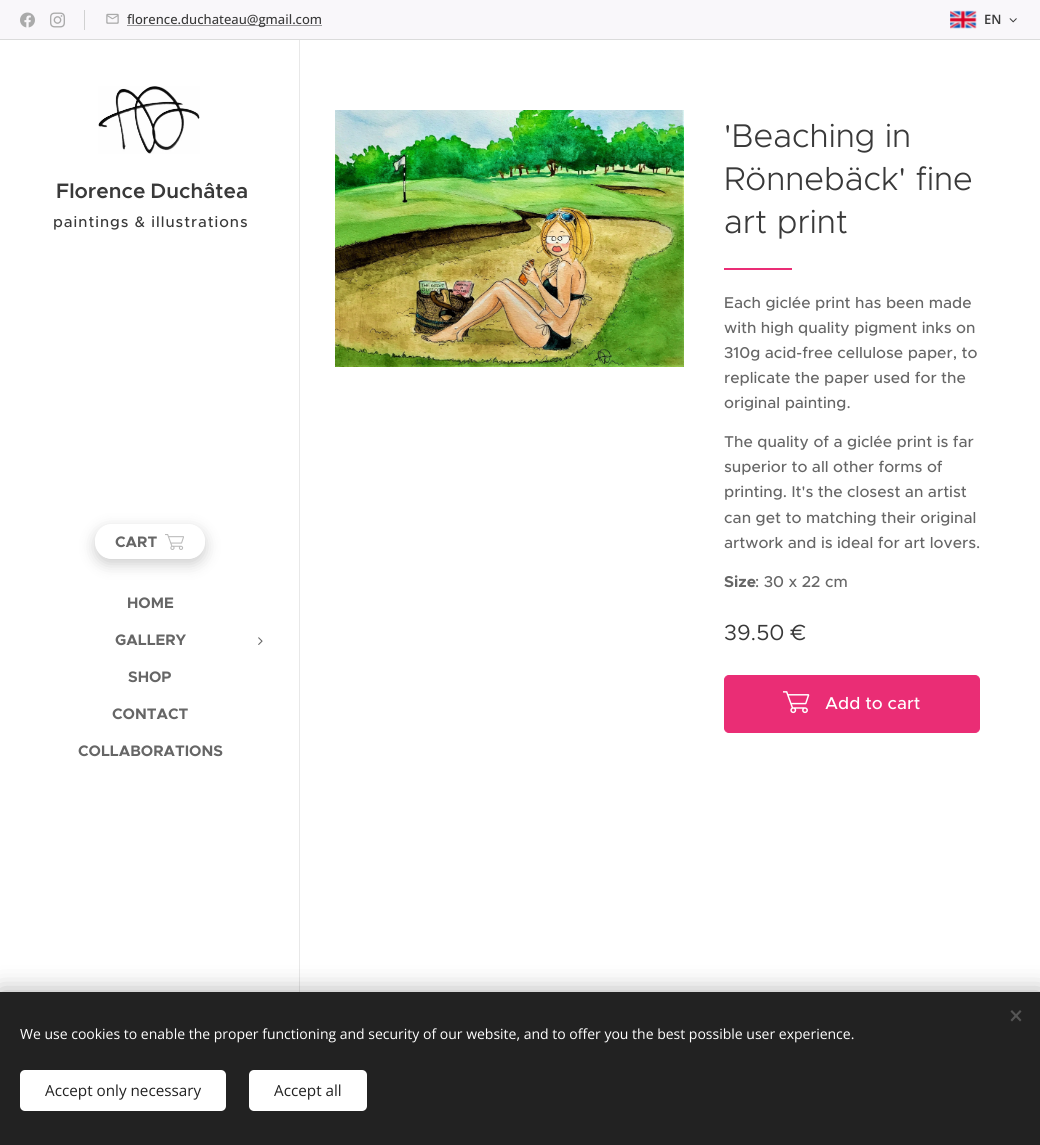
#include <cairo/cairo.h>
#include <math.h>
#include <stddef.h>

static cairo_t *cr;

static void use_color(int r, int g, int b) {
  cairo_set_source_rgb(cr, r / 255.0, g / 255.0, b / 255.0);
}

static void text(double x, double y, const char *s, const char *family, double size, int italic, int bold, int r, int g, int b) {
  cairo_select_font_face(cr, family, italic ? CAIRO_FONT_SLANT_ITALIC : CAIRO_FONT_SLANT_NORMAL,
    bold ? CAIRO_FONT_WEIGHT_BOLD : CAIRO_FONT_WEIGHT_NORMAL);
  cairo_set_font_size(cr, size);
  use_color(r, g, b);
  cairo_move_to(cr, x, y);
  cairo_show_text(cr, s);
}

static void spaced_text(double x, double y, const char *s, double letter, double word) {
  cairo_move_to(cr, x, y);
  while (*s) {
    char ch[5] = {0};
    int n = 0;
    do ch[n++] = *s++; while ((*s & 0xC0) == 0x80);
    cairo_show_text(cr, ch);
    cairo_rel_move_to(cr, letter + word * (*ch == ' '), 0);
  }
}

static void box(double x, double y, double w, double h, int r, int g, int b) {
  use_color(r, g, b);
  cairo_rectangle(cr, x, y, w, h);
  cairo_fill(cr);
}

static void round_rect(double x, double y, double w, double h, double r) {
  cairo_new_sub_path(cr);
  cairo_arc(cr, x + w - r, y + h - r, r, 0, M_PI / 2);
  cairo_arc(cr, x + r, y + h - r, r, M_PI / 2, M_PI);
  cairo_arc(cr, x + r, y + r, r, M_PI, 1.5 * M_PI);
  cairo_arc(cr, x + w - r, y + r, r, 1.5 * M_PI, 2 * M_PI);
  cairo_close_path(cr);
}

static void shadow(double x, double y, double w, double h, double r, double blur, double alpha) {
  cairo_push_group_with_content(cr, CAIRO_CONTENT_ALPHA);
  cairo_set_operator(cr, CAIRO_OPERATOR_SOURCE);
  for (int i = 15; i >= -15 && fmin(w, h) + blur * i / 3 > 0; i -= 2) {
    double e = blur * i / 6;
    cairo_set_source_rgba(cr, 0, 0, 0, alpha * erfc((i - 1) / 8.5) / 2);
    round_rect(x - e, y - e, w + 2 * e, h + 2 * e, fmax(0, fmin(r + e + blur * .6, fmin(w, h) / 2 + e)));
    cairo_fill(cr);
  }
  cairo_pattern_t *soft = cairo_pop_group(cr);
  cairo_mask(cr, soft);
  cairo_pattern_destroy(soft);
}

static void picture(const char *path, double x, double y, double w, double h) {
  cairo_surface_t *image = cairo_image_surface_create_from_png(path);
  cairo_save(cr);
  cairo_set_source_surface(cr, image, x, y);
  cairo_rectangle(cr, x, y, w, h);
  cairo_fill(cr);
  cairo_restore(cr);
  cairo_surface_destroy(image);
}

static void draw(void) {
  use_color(255, 255, 255);
  cairo_paint(cr);
  box(0, 0, 1040, 39, 249, 247, 250);
  picture("img_01.png", 20, 12, 15, 16);
  picture("img_02.png", 50, 12, 15, 16);
  box(84, 10, 1, 20, 209, 209, 209);
  picture("img_03.png", 106, 13, 13, 11);
  box(127, 25, 195, 1, 153, 152, 154);
  picture("img_04.png", 950, 10, 27, 19);
  picture("img_05.png", 1009, 18, 8, 5);
  box(0, 39, 1040, 1, 219, 219, 219);
  picture("img_06.png", 98, 86, 102, 68);
  cairo_save(cr);
  cairo_set_fill_rule(cr, CAIRO_FILL_RULE_EVEN_ODD);
  cairo_new_path(cr);
  cairo_move_to(cr, 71, 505);
  cairo_line_to(cr, 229, 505);
  cairo_line_to(cr, 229, 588);
  cairo_line_to(cr, 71, 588);
  cairo_close_path(cr);
  cairo_move_to(cr, 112, 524);
  cairo_line_to(cr, 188, 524);
  cairo_curve_to(cr, 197.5, 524, 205, 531.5, 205, 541);
  cairo_line_to(cr, 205, 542);
  cairo_curve_to(cr, 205, 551.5, 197.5, 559, 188, 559);
  cairo_line_to(cr, 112, 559);
  cairo_curve_to(cr, 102.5, 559, 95, 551.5, 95, 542);
  cairo_line_to(cr, 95, 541);
  cairo_curve_to(cr, 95, 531.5, 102.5, 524, 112, 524);
  cairo_close_path(cr);
  cairo_clip(cr);
  use_color(0, 0, 0);
  shadow(95, 529, 110, 35, 17, 7.5, 0.2);
  cairo_restore(cr);
  picture("img_07.png", 165, 534, 19, 16);
  picture("img_08.png", 258, 637, 5, 8);
  box(299, 40, 1, 952, 232, 232, 232);
  picture("img_09.png", 335, 110, 349, 257);
  box(724, 268, 68, 2, 234, 45, 117);
  round_rect(724.5, 675.5, 255, 57, 4.5);
  cairo_fill_preserve(cr);
  cairo_set_line_width(cr, 1);
  cairo_stroke(cr);
  picture("img_10.png", 783, 691, 27, 23);
  use_color(0, 0, 0);
  shadow(0, 992, 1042, 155, 0, 12.5, 0.33);
  box(0, 992, 1040, 153, 34, 34, 34);
  use_color(85, 85, 85);
  cairo_new_path(cr);
  cairo_move_to(cr, 1010.5, 1020);
  cairo_line_to(cr, 1020, 1010);
  cairo_line_to(cr, 1021.5, 1011.5);
  cairo_line_to(cr, 1012, 1021.5);
  cairo_close_path(cr);
  cairo_fill(cr);
  cairo_new_path(cr);
  cairo_move_to(cr, 1012, 1010);
  cairo_line_to(cr, 1021.5, 1020);
  cairo_line_to(cr, 1020, 1021.5);
  cairo_line_to(cr, 1010.5, 1011.5);
  cairo_close_path(cr);
  cairo_fill(cr);
  use_color(255, 255, 255);
  round_rect(20, 1070, 206, 41, 5);
  cairo_fill(cr);
  round_rect(249, 1070, 118, 41, 5);
  cairo_fill(cr);
  text(127, 24, "florence.duchateau@gmail.com", "Open Sans Medium", 13, 0, 0, 57, 57, 57);
  text(984, 24, "EN", "Open Sans SemiBold", 13, 0, 0, 57, 57, 57);
  cairo_select_font_face(cr, "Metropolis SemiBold", CAIRO_FONT_SLANT_NORMAL, CAIRO_FONT_WEIGHT_NORMAL);
  cairo_set_font_size(cr, 21);
  spaced_text(56, 198, "Florence Duchâtea", 0, -1);
  cairo_select_font_face(cr, "Metropolis Medium", CAIRO_FONT_SLANT_NORMAL, CAIRO_FONT_WEIGHT_NORMAL);
  cairo_set_font_size(cr, 15.25);
  spaced_text(53, 227, "paintings & illustrations", 1, 0);
  text(115, 547, "CART", "Metropolis", 15.25, 0, 1, 102, 102, 102);
  text(127, 608, "HOME", "Metropolis", 15.25, 0, 1, 102, 102, 102);
  text(115, 645, "GALLERY", "Metropolis", 15.25, 0, 1, 102, 102, 102);
  text(128, 682, "SHOP", "Metropolis", 15.25, 0, 1, 102, 102, 102);
  text(112, 719, "CONTACT", "Metropolis", 15.25, 0, 1, 102, 102, 102);
  text(78, 756, "COLLABORATIONS", "Metropolis", 15.25, 0, 1, 102, 102, 102);
  text(724, 147, "'Beaching in", "Metropolis Light", 33, 0, 0, 57, 57, 57);
  text(724, 190, "Rönnebäck' fine", "Metropolis Light", 33, 0, 0, 57, 57, 57);
  text(724, 233, "art print", "Metropolis Light", 33, 0, 0, 57, 57, 57);
  text(724, 308, "Each giclée print has been made", "Metropolis Medium", 15.75, 0, 0, 102, 102, 102);
  text(724, 333, "with high quality pigment inks on", "Metropolis Medium", 15.75, 0, 0, 102, 102, 102);
  text(724, 358, "310g acid-free cellulose paper, to", "Metropolis Medium", 15.75, 0, 0, 102, 102, 102);
  text(724, 383, "replicate the paper used for the", "Metropolis Medium", 15.75, 0, 0, 102, 102, 102);
  text(724, 408, "original painting.", "Metropolis Medium", 15.75, 0, 0, 102, 102, 102);
  text(724, 447, "The quality of a giclée print is far", "Metropolis Medium", 15.75, 0, 0, 102, 102, 102);
  text(724, 472, "superior to all other forms of", "Metropolis Medium", 15.75, 0, 0, 102, 102, 102);
  text(724, 497, "printing. It's the closest an artist", "Metropolis Medium", 15.75, 0, 0, 102, 102, 102);
  text(724, 523, "can get to matching their original", "Metropolis Medium", 15.75, 0, 0, 102, 102, 102);
  text(724, 548, "artwork and is ideal for art lovers.", "Metropolis Medium", 15.75, 0, 0, 102, 102, 102);
  text(724, 587, "Size", "Metropolis", 15.75, 0, 1, 102, 102, 102);
  text(755, 587, ": 30 x 22 cm", "Metropolis Medium", 15.75, 0, 0, 102, 102, 102);
  text(724, 640, "39.50 €", "Metropolis", 22, 0, 0, 57, 57, 57);
  text(825, 709, "Add to cart", "Metropolis Medium", 17.25, 0, 0, 255, 255, 255);
  text(20, 1039, "We use cookies to enable the proper functioning and security of our website, and to offer you the best possible user experience.", "Open Sans", 14, 0, 0, 255, 255, 255);
  text(45, 1096, "Accept only necessary", "Open Sans", 15.25, 0, 0, 34, 34, 34);
  text(274, 1096, "Accept all", "Open Sans", 15.25, 0, 0, 34, 34, 34);
}

int main(void) {
  cairo_surface_t *surface = cairo_image_surface_create(CAIRO_FORMAT_RGB24, 1040, 1145);
  cr = cairo_create(surface);
  cairo_font_options_t *options = cairo_font_options_create();
  cairo_font_options_set_hint_metrics(options, CAIRO_HINT_METRICS_OFF);
  cairo_font_options_set_hint_style(options, CAIRO_HINT_STYLE_NONE);
  cairo_set_font_options(cr, options);
  cairo_set_miter_limit(cr, 4);
  draw();
  cairo_surface_write_to_png(surface, "out.png");
  cairo_font_options_destroy(options);
  cairo_destroy(cr);
  cairo_surface_destroy(surface);
  return 0;
}
